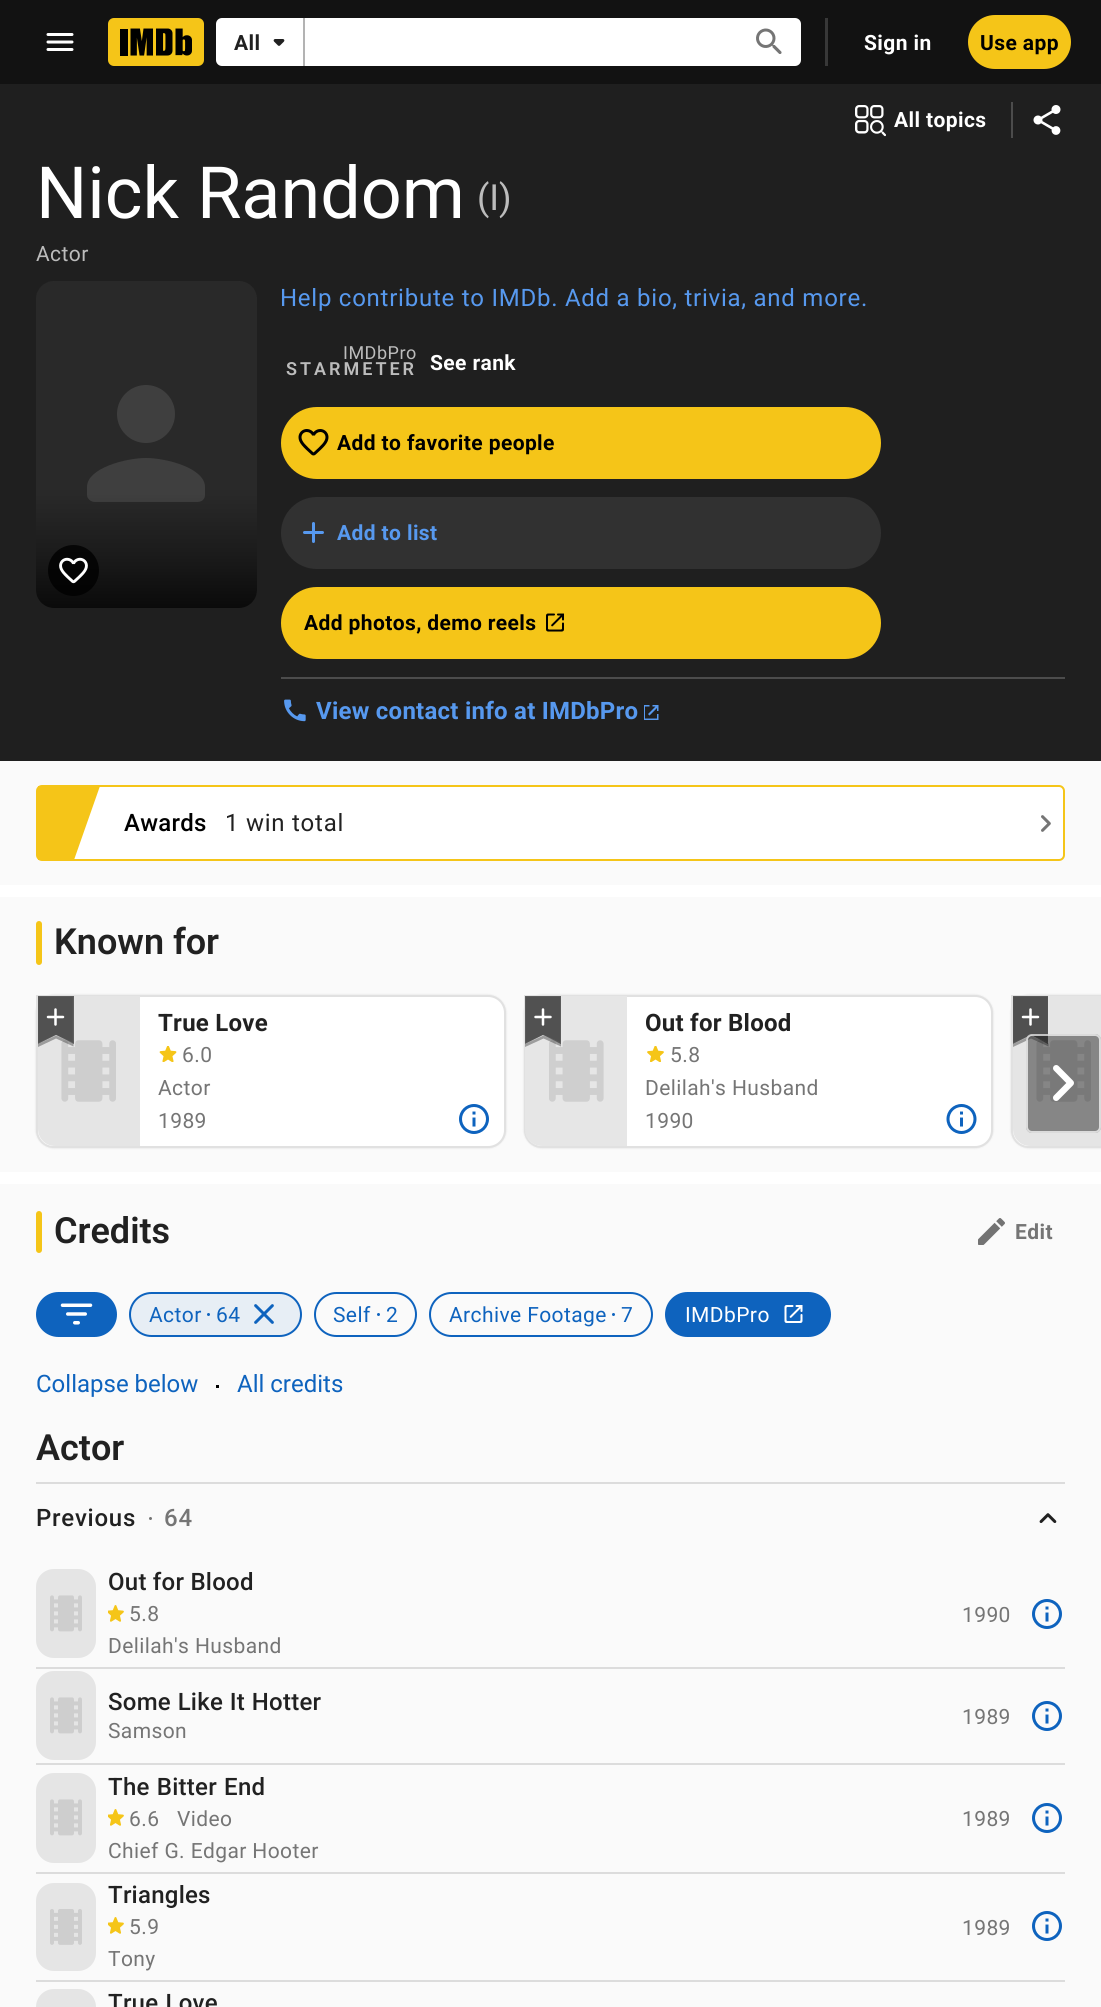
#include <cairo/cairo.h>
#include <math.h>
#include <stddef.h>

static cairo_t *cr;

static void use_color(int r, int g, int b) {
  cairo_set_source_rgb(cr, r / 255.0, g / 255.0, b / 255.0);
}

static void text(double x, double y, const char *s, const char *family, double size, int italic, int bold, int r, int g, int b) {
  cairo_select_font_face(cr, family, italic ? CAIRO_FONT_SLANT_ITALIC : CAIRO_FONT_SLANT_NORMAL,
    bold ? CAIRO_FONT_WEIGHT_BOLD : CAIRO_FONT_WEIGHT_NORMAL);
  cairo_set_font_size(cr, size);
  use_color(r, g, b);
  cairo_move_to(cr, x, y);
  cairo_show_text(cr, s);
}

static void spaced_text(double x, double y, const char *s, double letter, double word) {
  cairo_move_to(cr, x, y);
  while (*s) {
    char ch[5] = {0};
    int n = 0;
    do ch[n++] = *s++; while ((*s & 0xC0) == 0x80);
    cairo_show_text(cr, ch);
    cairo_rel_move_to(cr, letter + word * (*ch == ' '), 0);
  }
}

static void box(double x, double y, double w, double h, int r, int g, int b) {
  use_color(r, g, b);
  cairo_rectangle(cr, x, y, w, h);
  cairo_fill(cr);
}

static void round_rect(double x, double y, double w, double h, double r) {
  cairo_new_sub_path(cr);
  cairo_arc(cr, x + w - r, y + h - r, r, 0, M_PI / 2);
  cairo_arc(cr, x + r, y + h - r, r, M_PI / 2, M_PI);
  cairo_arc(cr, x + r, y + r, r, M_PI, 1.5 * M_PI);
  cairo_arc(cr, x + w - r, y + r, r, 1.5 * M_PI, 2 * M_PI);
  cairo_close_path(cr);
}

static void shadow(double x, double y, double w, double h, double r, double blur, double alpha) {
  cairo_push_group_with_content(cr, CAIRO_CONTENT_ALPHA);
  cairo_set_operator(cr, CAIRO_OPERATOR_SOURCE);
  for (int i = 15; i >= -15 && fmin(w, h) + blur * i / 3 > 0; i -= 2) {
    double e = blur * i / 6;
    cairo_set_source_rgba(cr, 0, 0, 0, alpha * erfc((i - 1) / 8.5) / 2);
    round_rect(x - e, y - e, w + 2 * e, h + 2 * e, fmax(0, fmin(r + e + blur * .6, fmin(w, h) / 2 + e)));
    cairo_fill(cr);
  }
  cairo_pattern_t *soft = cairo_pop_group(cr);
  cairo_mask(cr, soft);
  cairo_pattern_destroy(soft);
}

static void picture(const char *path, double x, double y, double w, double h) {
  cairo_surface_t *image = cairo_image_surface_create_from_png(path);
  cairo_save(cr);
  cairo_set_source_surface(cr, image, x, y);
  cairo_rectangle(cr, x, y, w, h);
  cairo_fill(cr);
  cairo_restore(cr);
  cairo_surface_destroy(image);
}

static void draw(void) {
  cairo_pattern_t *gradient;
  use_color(255, 255, 255);
  cairo_paint(cr);
  box(0, 0, 1101, 84, 18, 18, 18);
  picture("img_01.png", 46, 33, 28, 18);
  picture("img_02.png", 108, 18, 96, 48);
  use_color(255, 255, 255);
  round_rect(216, 18, 585, 48, 6);
  cairo_fill(cr);
  box(303, 18, 2, 48, 179, 179, 179);
  picture("img_03.png", 273, 39, 12, 7);
  picture("img_04.png", 756, 28, 26, 26);
  box(825, 18, 3, 48, 56, 56, 56);
  use_color(245, 197, 24);
  round_rect(968, 15, 103, 54, 27);
  cairo_fill(cr);
  box(0, 84, 1101, 677, 31, 31, 31);
  picture("img_05.png", 855, 105, 31, 32);
  box(1011, 102, 2, 36, 76, 76, 76);
  picture("img_06.png", 1033, 105, 28, 30);
  use_color(18, 18, 18);
  round_rect(36, 281, 221, 327, 18);
  cairo_fill(cr);
  cairo_set_source_rgba(cr, 1, 1, 1, 0.1);
  round_rect(36, 281, 221, 327, 18);
  cairo_fill(cr);
  use_color(63, 63, 63);
  cairo_new_path(cr);
  cairo_move_to(cr, 146, 443);
  cairo_curve_to(cr, 162, 443, 175, 430, 175, 414);
  cairo_curve_to(cr, 175, 398, 162, 385, 146, 385);
  cairo_curve_to(cr, 130, 385, 117, 398, 117, 414);
  cairo_curve_to(cr, 117, 430, 130, 443, 146, 443);
  cairo_close_path(cr);
  cairo_move_to(cr, 146, 458);
  cairo_curve_to(cr, 126, 458, 87, 468, 87, 487);
  cairo_line_to(cr, 87, 495);
  cairo_curve_to(cr, 87, 499, 91, 502, 95, 502);
  cairo_line_to(cr, 197, 502);
  cairo_curve_to(cr, 202, 502, 205, 499, 205, 495);
  cairo_line_to(cr, 205, 487);
  cairo_curve_to(cr, 205, 468, 166, 458, 146, 458);
  cairo_close_path(cr);
  cairo_fill(cr);
  gradient = cairo_pattern_create_linear(146, 281, 146, 608);
  cairo_pattern_add_color_stop_rgba(gradient, 0, 0, 0, 0, 0);
  cairo_pattern_add_color_stop_rgba(gradient, 0.65, 0, 0, 0, 0);
  cairo_pattern_add_color_stop_rgba(gradient, 0.84, 0, 0, 0, 0.35);
  cairo_pattern_add_color_stop_rgba(gradient, 1, 0, 0, 0, 0.75);
  cairo_set_source(cr, gradient);
  cairo_pattern_destroy(gradient);
  round_rect(36, 281, 221, 327, 18);
  cairo_fill(cr);
  cairo_set_source_rgba(cr, 0, 0, 0, 0.8);
  cairo_arc(cr, 73.5, 570.5, 25.5, 0, 2 * M_PI);
  cairo_fill(cr);
  picture("img_07.png", 59, 557, 29, 27);
  use_color(245, 197, 24);
  round_rect(281, 407, 600, 72, 36);
  cairo_fill(cr);
  picture("img_08.png", 298, 429, 31, 27);
  use_color(49, 49, 49);
  round_rect(281, 497, 600, 72, 36);
  cairo_fill(cr);
  picture("img_09.png", 303, 522, 21, 21);
  use_color(245, 197, 24);
  round_rect(281, 587, 600, 72, 36);
  cairo_fill(cr);
  picture("img_10.png", 546, 613, 18, 19);
  box(281, 677, 784, 2, 76, 76, 76);
  picture("img_11.png", 284, 699, 22, 23);
  picture("img_12.png", 644, 705, 15, 15);
  box(0, 761, 1101, 124, 250, 250, 250);
  use_color(255, 255, 255);
  round_rect(37, 786, 1027, 74, 5);
  cairo_fill_preserve(cr);
  use_color(245, 197, 24);
  cairo_stroke(cr);
  box(38, 786, 35, 74, 245, 197, 24);
  cairo_new_path(cr);
  cairo_move_to(cr, 73, 786);
  cairo_line_to(cr, 100, 786);
  cairo_line_to(cr, 74, 860);
  cairo_line_to(cr, 47, 860);
  cairo_close_path(cr);
  cairo_fill(cr);
  picture("img_13.png", 1041, 815, 10, 17);
  box(0, 897, 1101, 275, 250, 250, 250);
  use_color(245, 197, 24);
  round_rect(36, 921, 6, 44, 3);
  cairo_fill(cr);
  use_color(0, 0, 0);
  shadow(36, 995, 470, 153, 18, 1, 0.12);
  use_color(255, 255, 255);
  cairo_new_path(cr);
  cairo_move_to(cr, 36, 995);
  cairo_line_to(cr, 488, 995);
  cairo_curve_to(cr, 498, 995, 506, 1003, 506, 1013);
  cairo_line_to(cr, 506, 1130);
  cairo_curve_to(cr, 506, 1140, 498, 1148, 488, 1148);
  cairo_line_to(cr, 54, 1148);
  cairo_curve_to(cr, 44, 1148, 36, 1140, 36, 1130);
  cairo_close_path(cr);
  cairo_fill(cr);
  cairo_new_path(cr);
  cairo_move_to(cr, 37, 996);
  cairo_line_to(cr, 488, 996);
  cairo_curve_to(cr, 497.5, 996, 505, 1003.5, 505, 1013);
  cairo_line_to(cr, 505, 1130);
  cairo_curve_to(cr, 505, 1139.5, 497.5, 1147, 488, 1147);
  cairo_line_to(cr, 54, 1147);
  cairo_curve_to(cr, 44.5, 1147, 37, 1139.5, 37, 1130);
  cairo_close_path(cr);
  cairo_set_source_rgba(cr, 0, 0, 0, 0.12);
  cairo_stroke(cr);
  use_color(229, 229, 229);
  cairo_new_path(cr);
  cairo_move_to(cr, 38, 996);
  cairo_line_to(cr, 140, 996);
  cairo_line_to(cr, 140, 1146);
  cairo_line_to(cr, 55, 1146);
  cairo_curve_to(cr, 45.5, 1146, 38, 1138.5, 38, 1129);
  cairo_close_path(cr);
  cairo_fill(cr);
  picture("img_14.png", 61, 1040, 55, 62);
  use_color(81, 81, 81);
  cairo_new_path(cr);
  cairo_move_to(cr, 74, 996);
  cairo_line_to(cr, 38, 996);
  cairo_line_to(cr, 38, 1044);
  cairo_line_to(cr, 56, 1035);
  cairo_line_to(cr, 74, 1044);
  cairo_close_path(cr);
  cairo_fill(cr);
  cairo_save(cr);
  cairo_new_path(cr);
  cairo_move_to(cr, 38, 996);
  cairo_line_to(cr, 487, 996);
  cairo_curve_to(cr, 496.5, 996, 504, 1003.5, 504, 1013);
  cairo_line_to(cr, 504, 1129);
  cairo_curve_to(cr, 504, 1138.5, 496.5, 1146, 487, 1146);
  cairo_line_to(cr, 55, 1146);
  cairo_curve_to(cr, 45.5, 1146, 38, 1138.5, 38, 1129);
  cairo_close_path(cr);
  cairo_clip(cr);
  cairo_new_path(cr);
  cairo_move_to(cr, 73.5, 996);
  cairo_line_to(cr, 37.5, 996);
  cairo_line_to(cr, 37.5, 1044);
  cairo_line_to(cr, 56, 1035.5);
  cairo_line_to(cr, 73.5, 1043.5);
  cairo_close_path(cr);
  cairo_set_source_rgba(cr, 1, 1, 1, 0.08);
  cairo_set_line_width(cr, 1.5);
  cairo_stroke(cr);
  cairo_restore(cr);
  picture("img_15.png", 46, 1008, 19, 18);
  cairo_set_source_rgba(cr, 0, 0, 0, 0.32);
  cairo_new_path(cr);
  cairo_move_to(cr, 73.5, 1043.5);
  cairo_line_to(cr, 73.5, 1046.5);
  cairo_line_to(cr, 56, 1038.5);
  cairo_line_to(cr, 38, 1047);
  cairo_line_to(cr, 38, 1044);
  cairo_line_to(cr, 56, 1035.5);
  cairo_close_path(cr);
  cairo_fill(cr);
  picture("img_16.png", 159, 1046, 18, 16);
  picture("img_17.png", 459, 1104, 30, 30);
  use_color(0, 0, 0);
  shadow(524, 995, 469, 153, 18, 1, 0.12);
  use_color(255, 255, 255);
  cairo_new_path(cr);
  cairo_move_to(cr, 524, 995);
  cairo_line_to(cr, 975, 995);
  cairo_curve_to(cr, 985, 995, 993, 1003, 993, 1013);
  cairo_line_to(cr, 993, 1130);
  cairo_curve_to(cr, 993, 1140, 985, 1148, 975, 1148);
  cairo_line_to(cr, 542, 1148);
  cairo_curve_to(cr, 532, 1148, 524, 1140, 524, 1130);
  cairo_close_path(cr);
  cairo_fill(cr);
  cairo_new_path(cr);
  cairo_move_to(cr, 525, 996);
  cairo_line_to(cr, 975, 996);
  cairo_curve_to(cr, 984.5, 996, 992, 1003.5, 992, 1013);
  cairo_line_to(cr, 992, 1130);
  cairo_curve_to(cr, 992, 1139.5, 984.5, 1147, 975, 1147);
  cairo_line_to(cr, 542, 1147);
  cairo_curve_to(cr, 532.5, 1147, 525, 1139.5, 525, 1130);
  cairo_close_path(cr);
  cairo_set_source_rgba(cr, 0, 0, 0, 0.12);
  cairo_stroke(cr);
  use_color(255, 255, 255);
  cairo_new_path(cr);
  cairo_move_to(cr, 525, 996);
  cairo_line_to(cr, 627, 996);
  cairo_line_to(cr, 627, 1146);
  cairo_line_to(cr, 542, 1146);
  cairo_curve_to(cr, 532.5, 1146, 525, 1138.5, 525, 1129);
  cairo_close_path(cr);
  cairo_fill(cr);
  cairo_set_source_rgba(cr, 0, 0, 0, 0.1);
  cairo_new_path(cr);
  cairo_move_to(cr, 525, 996);
  cairo_line_to(cr, 627, 996);
  cairo_line_to(cr, 627, 1146);
  cairo_line_to(cr, 542, 1146);
  cairo_curve_to(cr, 532.5, 1146, 525, 1138.5, 525, 1129);
  cairo_close_path(cr);
  cairo_fill(cr);
  picture("img_18.png", 549, 1040, 55, 62);
  use_color(81, 81, 81);
  cairo_new_path(cr);
  cairo_move_to(cr, 561, 996);
  cairo_line_to(cr, 525, 996);
  cairo_line_to(cr, 525, 1044);
  cairo_line_to(cr, 543, 1035);
  cairo_line_to(cr, 561, 1044);
  cairo_close_path(cr);
  cairo_fill(cr);
  cairo_new_path(cr);
  cairo_move_to(cr, 561, 996);
  cairo_line_to(cr, 525, 996);
  cairo_line_to(cr, 525, 1044);
  cairo_line_to(cr, 543.5, 1035.5);
  cairo_line_to(cr, 561, 1043.5);
  cairo_close_path(cr);
  cairo_set_source_rgba(cr, 1, 1, 1, 0.08);
  cairo_set_line_width(cr, 1.5);
  cairo_stroke(cr);
  picture("img_19.png", 534, 1008, 18, 18);
  cairo_set_source_rgba(cr, 0, 0, 0, 0.32);
  cairo_new_path(cr);
  cairo_move_to(cr, 561, 1043.5);
  cairo_line_to(cr, 561, 1046.5);
  cairo_line_to(cr, 543.5, 1038.5);
  cairo_line_to(cr, 525, 1047);
  cairo_line_to(cr, 525, 1044);
  cairo_line_to(cr, 543.5, 1035.5);
  cairo_close_path(cr);
  cairo_fill(cr);
  picture("img_20.png", 647, 1046, 17, 16);
  picture("img_21.png", 946, 1104, 31, 30);
  use_color(0, 0, 0);
  shadow(1011, 995, 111, 153, 18, 1, 0.12);
  use_color(255, 255, 255);
  cairo_new_path(cr);
  cairo_move_to(cr, 1011, 995);
  cairo_line_to(cr, 1101, 995);
  cairo_line_to(cr, 1101, 1148);
  cairo_line_to(cr, 1029, 1148);
  cairo_curve_to(cr, 1019, 1148, 1011, 1140, 1011, 1130);
  cairo_close_path(cr);
  cairo_fill(cr);
  cairo_new_path(cr);
  cairo_move_to(cr, 1012, 996);
  cairo_line_to(cr, 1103, 996);
  cairo_curve_to(cr, 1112.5, 996, 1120, 1003.5, 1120, 1013);
  cairo_line_to(cr, 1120, 1130);
  cairo_curve_to(cr, 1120, 1139.5, 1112.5, 1147, 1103, 1147);
  cairo_line_to(cr, 1029, 1147);
  cairo_curve_to(cr, 1019.5, 1147, 1012, 1139.5, 1012, 1130);
  cairo_close_path(cr);
  cairo_set_source_rgba(cr, 0, 0, 0, 0.12);
  cairo_set_line_width(cr, 2);
  cairo_stroke(cr);
  use_color(229, 229, 229);
  cairo_new_path(cr);
  cairo_move_to(cr, 1013, 996);
  cairo_line_to(cr, 1101, 996);
  cairo_line_to(cr, 1101, 1146);
  cairo_line_to(cr, 1030, 1146);
  cairo_curve_to(cr, 1020.5, 1146, 1013, 1138.5, 1013, 1129);
  cairo_close_path(cr);
  cairo_fill(cr);
  picture("img_14.png", 1036, 1040, 55, 62);
  cairo_set_source_rgba(cr, 0.122, 0.122, 0.122, 0.75);
  cairo_new_path(cr);
  cairo_move_to(cr, 1048, 996);
  cairo_line_to(cr, 1013, 996);
  cairo_line_to(cr, 1013, 1044);
  cairo_line_to(cr, 1031, 1035);
  cairo_line_to(cr, 1048, 1044);
  cairo_close_path(cr);
  cairo_fill(cr);
  cairo_save(cr);
  cairo_new_path(cr);
  cairo_move_to(cr, 1013, 996);
  cairo_line_to(cr, 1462, 996);
  cairo_curve_to(cr, 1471.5, 996, 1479, 1003.5, 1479, 1013);
  cairo_line_to(cr, 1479, 1129);
  cairo_curve_to(cr, 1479, 1138.5, 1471.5, 1146, 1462, 1146);
  cairo_line_to(cr, 1030, 1146);
  cairo_curve_to(cr, 1020.5, 1146, 1013, 1138.5, 1013, 1129);
  cairo_close_path(cr);
  cairo_clip(cr);
  cairo_new_path(cr);
  cairo_move_to(cr, 1048.5, 996);
  cairo_line_to(cr, 1012.5, 996);
  cairo_line_to(cr, 1012.5, 1044);
  cairo_line_to(cr, 1031, 1035.5);
  cairo_line_to(cr, 1048.5, 1043.5);
  cairo_close_path(cr);
  cairo_set_source_rgba(cr, 1, 1, 1, 0.08);
  cairo_set_line_width(cr, 1.5);
  cairo_stroke(cr);
  cairo_restore(cr);
  picture("img_22.png", 1021, 1008, 19, 18);
  cairo_set_source_rgba(cr, 0, 0, 0, 0.32);
  cairo_new_path(cr);
  cairo_move_to(cr, 1048.5, 1043.5);
  cairo_line_to(cr, 1048.5, 1046.5);
  cairo_line_to(cr, 1031, 1038.5);
  cairo_line_to(cr, 1013, 1047);
  cairo_line_to(cr, 1013, 1044);
  cairo_line_to(cr, 1031, 1035.5);
  cairo_close_path(cr);
  cairo_fill(cr);
  cairo_set_source_rgba(cr, 0.071, 0.071, 0.071, 0.45);
  round_rect(1026, 1034, 75, 99, 6);
  cairo_fill(cr);
  round_rect(1027, 1035, 73, 97, 5);
  cairo_set_source_rgba(cr, 1, 1, 1, 0.7);
  cairo_stroke(cr);
  picture("img_23.png", 1053, 1065, 21, 36);
  box(0, 1184, 1101, 823, 250, 250, 250);
  use_color(245, 197, 24);
  round_rect(36, 1211, 6, 42, 3);
  cairo_fill(cr);
  picture("img_24.png", 978, 1218, 27, 27);
  use_color(14, 99, 190);
  round_rect(36, 1292, 81, 45, 22.5);
  cairo_fill(cr);
  picture("img_25.png", 60, 1303, 33, 22);
  use_color(231, 238, 245);
  round_rect(130, 1293, 171, 43, 21.5);
  cairo_fill_preserve(cr);
  use_color(14, 99, 190);
  cairo_stroke(cr);
  cairo_arc(cr, 208.5, 1314.5, 1.5, 0, 2 * M_PI);
  cairo_fill(cr);
  picture("img_26.png", 254, 1304, 20, 20);
  round_rect(315, 1293, 101, 43, 21.5);
  cairo_stroke(cr);
  cairo_arc(cr, 378.5, 1314.5, 1.5, 0, 2 * M_PI);
  cairo_fill(cr);
  round_rect(430, 1293, 222, 43, 21.5);
  cairo_stroke(cr);
  cairo_arc(cr, 613.5, 1314.5, 1.5, 0, 2 * M_PI);
  cairo_fill(cr);
  round_rect(665, 1292, 166, 45, 22.5);
  cairo_fill(cr);
  picture("img_27.png", 784, 1305, 19, 18);
  box(216, 1385, 3, 3, 0, 0, 0);
  box(36, 1482, 1029, 2, 220, 220, 220);
  use_color(115, 115, 115);
  cairo_arc(cr, 150.5, 1518.5, 1.5, 0, 2 * M_PI);
  cairo_fill(cr);
  picture("img_28.png", 1039, 1513, 18, 10);
  use_color(229, 229, 229);
  round_rect(36, 1569, 60, 89, 18);
  cairo_fill(cr);
  picture("img_29.png", 50, 1595, 32, 37);
  picture("img_30.png", 108, 1605, 16, 17);
  picture("img_31.png", 1032, 1599, 30, 30);
  box(36, 1667, 1029, 2, 220, 220, 220);
  use_color(229, 229, 229);
  round_rect(36, 1671, 60, 89, 18);
  cairo_fill(cr);
  picture("img_29.png", 50, 1697, 32, 37);
  picture("img_31.png", 1032, 1701, 30, 30);
  box(36, 1763, 1029, 2, 220, 220, 220);
  use_color(229, 229, 229);
  round_rect(36, 1773, 60, 90, 18);
  cairo_fill(cr);
  picture("img_29.png", 50, 1799, 32, 37);
  picture("img_30.png", 108, 1809, 16, 17);
  picture("img_31.png", 1032, 1803, 30, 30);
  box(36, 1872, 1029, 2, 220, 220, 220);
  use_color(229, 229, 229);
  round_rect(36, 1883, 60, 88, 18);
  cairo_fill(cr);
  picture("img_32.png", 50, 1909, 32, 36);
  picture("img_30.png", 108, 1917, 16, 17);
  picture("img_31.png", 1032, 1911, 30, 30);
  box(36, 1980, 1029, 2, 220, 220, 220);
  use_color(229, 229, 229);
  round_rect(36, 1989, 60, 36, 18);
  cairo_fill(cr);
  cairo_select_font_face(cr, "Roboto", CAIRO_FONT_SLANT_NORMAL, CAIRO_FONT_WEIGHT_BOLD);
  cairo_set_font_size(cr, 21);
  use_color(33, 33, 33);
  spaced_text(234, 50, "All", 0.4, 0);
  use_color(255, 255, 255);
  spaced_text(864, 50, "Sign in", 0.4, 0);
  use_color(0, 0, 0);
  spaced_text(980, 50, "Use app", 0.4, 0);
  use_color(255, 255, 255);
  spaced_text(894, 127, "All topics", 0.4, 0);
  text(36, 218, "Nick Random", "Roboto", 72, 0, 0, 255, 255, 255);
  text(477, 210, "(I)", "Roboto", 36, 0, 0, 188, 188, 188);
  cairo_set_font_size(cr, 21);
  spaced_text(36, 261, "Actor", 0.4, 0);
  cairo_set_font_size(cr, 24);
  use_color(87, 153, 239);
  spaced_text(280, 306, "Help contribute to IMDb. Add a bio, trivia, and more.", 0.75, 0);
  cairo_set_font_size(cr, 18);
  use_color(188, 188, 188);
  spaced_text(343, 359, "IMDbPro", 0.5, 0);
  cairo_select_font_face(cr, "Roboto SemiBold", CAIRO_FONT_SLANT_NORMAL, CAIRO_FONT_WEIGHT_NORMAL);
  spaced_text(286, 375, "STARMETER", 3, 0);
  cairo_select_font_face(cr, "Roboto", CAIRO_FONT_SLANT_NORMAL, CAIRO_FONT_WEIGHT_BOLD);
  cairo_set_font_size(cr, 21);
  use_color(255, 255, 255);
  spaced_text(430, 370, "See rank", 0.4, 0);
  use_color(0, 0, 0);
  spaced_text(337, 450, "Add to favorite people", 0.4, 0);
  use_color(87, 153, 239);
  spaced_text(337, 540, "Add to list", 0.4, 0);
  use_color(0, 0, 0);
  spaced_text(304, 630, "Add photos, demo reels", 0.4, 0);
  cairo_set_font_size(cr, 24);
  use_color(87, 153, 239);
  spaced_text(316, 719, "View contact info at IMDbPro", 0.25, 0);
  cairo_select_font_face(cr, "Roboto Medium", CAIRO_FONT_SLANT_NORMAL, CAIRO_FONT_WEIGHT_NORMAL);
  use_color(0, 0, 0);
  spaced_text(124, 831, "Awards", 0.25, 0);
  cairo_select_font_face(cr, "Roboto", CAIRO_FONT_SLANT_NORMAL, CAIRO_FONT_WEIGHT_NORMAL);
  use_color(33, 33, 33);
  spaced_text(225, 831, "1 win total", 0.75, 0);
  text(54, 954, "Known for", "Roboto SemiBold", 36, 0, 0, 33, 33, 33);
  cairo_select_font_face(cr, "Roboto", CAIRO_FONT_SLANT_NORMAL, CAIRO_FONT_WEIGHT_BOLD);
  cairo_set_font_size(cr, 24);
  spaced_text(158, 1031, "True Love", 0.25, 0);
  cairo_select_font_face(cr, "Roboto", CAIRO_FONT_SLANT_NORMAL, CAIRO_FONT_WEIGHT_NORMAL);
  cairo_set_font_size(cr, 21);
  use_color(117, 117, 117);
  spaced_text(182, 1062, "6.0", 0.4, 0);
  spaced_text(158, 1095, "Actor", 0.4, 0);
  spaced_text(158, 1128, "1989", 0.4, 0);
  cairo_select_font_face(cr, "Roboto", CAIRO_FONT_SLANT_NORMAL, CAIRO_FONT_WEIGHT_BOLD);
  cairo_set_font_size(cr, 24);
  use_color(33, 33, 33);
  spaced_text(645, 1031, "Out for Blood", 0.25, 0);
  cairo_select_font_face(cr, "Roboto", CAIRO_FONT_SLANT_NORMAL, CAIRO_FONT_WEIGHT_NORMAL);
  cairo_set_font_size(cr, 21);
  use_color(117, 117, 117);
  spaced_text(670, 1062, "5.8", 0.4, 0);
  spaced_text(645, 1095, "Delilah's Husband", 0.4, 0);
  spaced_text(645, 1128, "1990", 0.4, 0);
  text(54, 1243, "Credits", "Roboto SemiBold", 36, 0, 0, 33, 33, 33);
  cairo_select_font_face(cr, "Roboto", CAIRO_FONT_SLANT_NORMAL, CAIRO_FONT_WEIGHT_BOLD);
  cairo_set_font_size(cr, 21);
  use_color(117, 117, 117);
  spaced_text(1015, 1239, "Edit", 0.4, 0);
  cairo_select_font_face(cr, "Roboto", CAIRO_FONT_SLANT_NORMAL, CAIRO_FONT_WEIGHT_NORMAL);
  use_color(14, 99, 190);
  spaced_text(149, 1322, "Actor", 0.4, 0);
  spaced_text(216, 1322, "64", 0.4, 0);
  spaced_text(333, 1322, "Self", 0.4, 0);
  spaced_text(386, 1322, "2", 0.4, 0);
  spaced_text(449, 1322, "Archive Footage", 0.4, 0);
  spaced_text(621, 1322, "7", 0.4, 0);
  use_color(255, 255, 255);
  spaced_text(685, 1322, "IMDbPro", 0.4, 0);
  text(36, 1392, "Collapse below", "Roboto", 24, 0, 0, 14, 99, 190);
  text(237, 1392, "All credits", "Roboto", 24, 0, 0, 14, 99, 190);
  text(36, 1460, "Actor", "Roboto SemiBold", 36, 0, 0, 33, 33, 33);
  cairo_select_font_face(cr, "Roboto Medium", CAIRO_FONT_SLANT_NORMAL, CAIRO_FONT_WEIGHT_NORMAL);
  cairo_set_font_size(cr, 24);
  spaced_text(36, 1526, "Previous", 0.75, 0);
  use_color(117, 117, 117);
  spaced_text(164, 1526, "64", 0.75, 0);
  use_color(33, 33, 33);
  spaced_text(108, 1590, "Out for Blood", 0.25, 0);
  cairo_select_font_face(cr, "Roboto", CAIRO_FONT_SLANT_NORMAL, CAIRO_FONT_WEIGHT_NORMAL);
  cairo_set_font_size(cr, 21);
  use_color(117, 117, 117);
  spaced_text(129, 1621, "5.8", 0.4, 0);
  spaced_text(108, 1653, "Delilah's Husband", 0.4, 0);
  spaced_text(962, 1622, "1990", 0.4, 0);
  cairo_select_font_face(cr, "Roboto Medium", CAIRO_FONT_SLANT_NORMAL, CAIRO_FONT_WEIGHT_NORMAL);
  cairo_set_font_size(cr, 24);
  use_color(33, 33, 33);
  spaced_text(108, 1710, "Some Like It Hotter", 0.25, 0.5);
  cairo_select_font_face(cr, "Roboto", CAIRO_FONT_SLANT_NORMAL, CAIRO_FONT_WEIGHT_NORMAL);
  cairo_set_font_size(cr, 21);
  use_color(117, 117, 117);
  spaced_text(108, 1738, "Samson", 0.4, 0);
  spaced_text(962, 1724, "1989", 0.4, 0);
  cairo_select_font_face(cr, "Roboto Medium", CAIRO_FONT_SLANT_NORMAL, CAIRO_FONT_WEIGHT_NORMAL);
  cairo_set_font_size(cr, 24);
  use_color(33, 33, 33);
  spaced_text(108, 1795, "The Bitter End", 0.25, 1);
  cairo_select_font_face(cr, "Roboto", CAIRO_FONT_SLANT_NORMAL, CAIRO_FONT_WEIGHT_NORMAL);
  cairo_set_font_size(cr, 21);
  use_color(117, 117, 117);
  spaced_text(129, 1826, "6.6", 0.4, 0);
  spaced_text(177, 1826, "Video", 0.4, 0);
  spaced_text(108, 1858, "Chief G. Edgar Hooter", 0.4, 0);
  spaced_text(962, 1826, "1989", 0.4, 0);
  cairo_select_font_face(cr, "Roboto Medium", CAIRO_FONT_SLANT_NORMAL, CAIRO_FONT_WEIGHT_NORMAL);
  cairo_set_font_size(cr, 24);
  use_color(33, 33, 33);
  spaced_text(108, 1903, "Triangles", 0.25, 0);
  cairo_select_font_face(cr, "Roboto", CAIRO_FONT_SLANT_NORMAL, CAIRO_FONT_WEIGHT_NORMAL);
  cairo_set_font_size(cr, 21);
  use_color(117, 117, 117);
  spaced_text(129, 1934, "5.9", 0.4, 0);
  spaced_text(108, 1966, "Tony", 0.4, 0);
  spaced_text(962, 1935, "1989", 0.4, 0);
  cairo_select_font_face(cr, "Roboto Medium", CAIRO_FONT_SLANT_NORMAL, CAIRO_FONT_WEIGHT_NORMAL);
  cairo_set_font_size(cr, 24);
  use_color(33, 33, 33);
  spaced_text(108, 2011, "True Love", 0.25, 1);
}

int main(void) {
  cairo_surface_t *surface = cairo_image_surface_create(CAIRO_FORMAT_RGB24, 1101, 2007);
  cr = cairo_create(surface);
  cairo_font_options_t *options = cairo_font_options_create();
  cairo_font_options_set_hint_metrics(options, CAIRO_HINT_METRICS_OFF);
  cairo_font_options_set_hint_style(options, CAIRO_HINT_STYLE_NONE);
  cairo_set_font_options(cr, options);
  cairo_set_miter_limit(cr, 4);
  draw();
  cairo_surface_write_to_png(surface, "out.png");
  cairo_font_options_destroy(options);
  cairo_destroy(cr);
  cairo_surface_destroy(surface);
  return 0;
}
